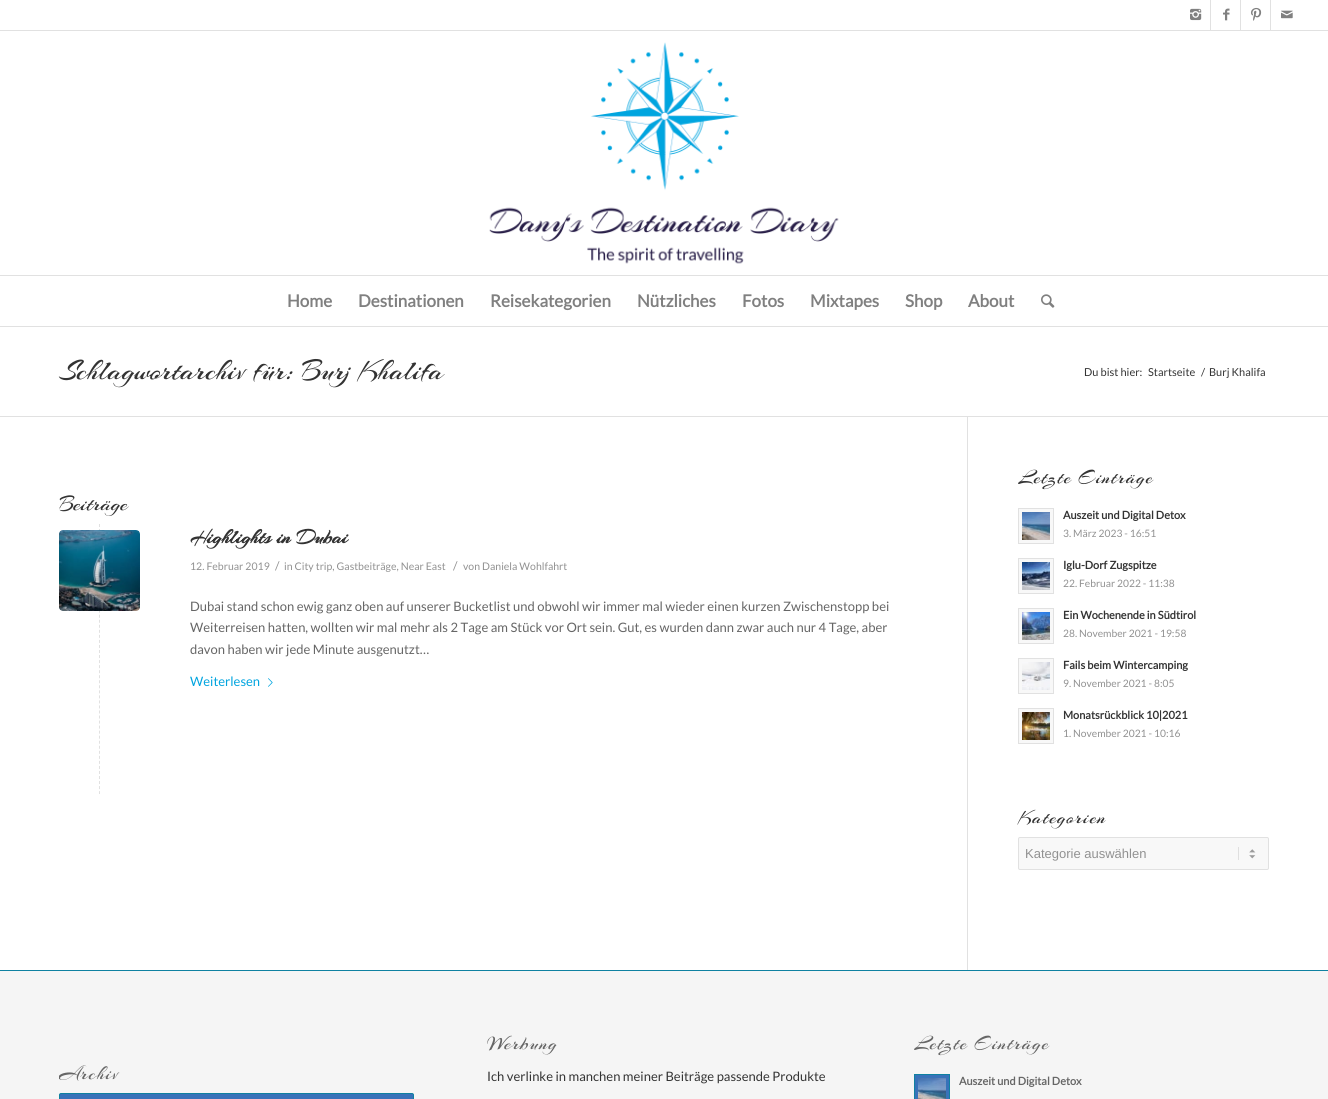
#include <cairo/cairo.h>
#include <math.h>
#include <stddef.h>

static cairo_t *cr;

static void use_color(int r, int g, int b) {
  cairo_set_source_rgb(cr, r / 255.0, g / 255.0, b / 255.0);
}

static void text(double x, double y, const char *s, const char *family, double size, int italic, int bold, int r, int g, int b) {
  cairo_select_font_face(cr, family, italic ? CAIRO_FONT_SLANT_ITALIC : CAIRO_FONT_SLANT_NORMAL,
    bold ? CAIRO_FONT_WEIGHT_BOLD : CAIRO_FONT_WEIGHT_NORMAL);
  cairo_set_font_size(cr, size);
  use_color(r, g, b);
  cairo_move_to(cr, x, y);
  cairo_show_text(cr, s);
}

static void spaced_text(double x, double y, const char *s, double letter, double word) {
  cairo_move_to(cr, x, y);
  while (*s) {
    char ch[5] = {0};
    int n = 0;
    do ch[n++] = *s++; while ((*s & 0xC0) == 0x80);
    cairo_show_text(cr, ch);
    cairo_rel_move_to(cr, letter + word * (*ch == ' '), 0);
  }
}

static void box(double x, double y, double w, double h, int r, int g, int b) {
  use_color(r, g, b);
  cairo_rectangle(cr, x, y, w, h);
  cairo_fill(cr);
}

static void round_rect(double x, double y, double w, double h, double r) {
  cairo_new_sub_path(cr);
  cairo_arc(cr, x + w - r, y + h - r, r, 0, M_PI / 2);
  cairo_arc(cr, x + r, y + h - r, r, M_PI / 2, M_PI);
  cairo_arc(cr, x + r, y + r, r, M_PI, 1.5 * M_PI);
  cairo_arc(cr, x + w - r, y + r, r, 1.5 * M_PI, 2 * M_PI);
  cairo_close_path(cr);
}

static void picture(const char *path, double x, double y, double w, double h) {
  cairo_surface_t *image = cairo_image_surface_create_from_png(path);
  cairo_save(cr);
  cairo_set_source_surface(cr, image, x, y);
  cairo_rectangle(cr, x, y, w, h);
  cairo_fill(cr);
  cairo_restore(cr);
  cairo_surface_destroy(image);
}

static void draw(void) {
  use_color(255, 255, 255);
  cairo_paint(cr);
  box(0, 30, 1328, 1, 225, 225, 225);
  box(1210, 0, 1, 30, 225, 225, 225);
  picture("img_01.png", 1190, 8, 12, 13);
  box(1240, 0, 1, 30, 225, 225, 225);
  picture("img_02.png", 1223, 8, 7, 13);
  box(1270, 0, 1, 30, 225, 225, 225);
  picture("img_03.png", 1251, 7, 11, 14);
  picture("img_04.png", 1281, 10, 12, 9);
  box(0, 326, 1328, 1, 225, 225, 225);
  picture("img_05.png", 489, 42, 350, 222);
  box(0, 275, 1328, 1, 225, 225, 225);
  picture("img_06.png", 1041, 294, 14, 14);
  box(0, 416, 1328, 1, 225, 225, 225);
  cairo_new_path(cr);
  cairo_move_to(cr, 99.5, 524);
  cairo_line_to(cr, 99.5, 794);
  cairo_set_line_width(cr, 1);
  cairo_set_dash(cr, (double[]){3, 2.04}, 2, 0);
  cairo_stroke(cr);
  picture("img_07.png", 268, 678, 5, 9);
  picture("img_08.png", 59, 530, 81, 81);
  box(967, 417, 1, 553, 225, 225, 225);
  use_color(248, 248, 248);
  cairo_rectangle(cr, 1018.5, 508.5, 35, 35);
  cairo_fill_preserve(cr);
  use_color(225, 225, 225);
  cairo_set_dash(cr, NULL, 0, 0);
  cairo_stroke(cr);
  picture("img_09.png", 1022, 512, 28, 28);
  use_color(248, 248, 248);
  cairo_rectangle(cr, 1018.5, 558.5, 35, 35);
  cairo_fill_preserve(cr);
  use_color(225, 225, 225);
  cairo_stroke(cr);
  picture("img_10.png", 1022, 562, 28, 28);
  use_color(248, 248, 248);
  cairo_rectangle(cr, 1018.5, 608.5, 35, 35);
  cairo_fill_preserve(cr);
  use_color(225, 225, 225);
  cairo_stroke(cr);
  picture("img_11.png", 1022, 612, 28, 28);
  use_color(248, 248, 248);
  cairo_rectangle(cr, 1018.5, 658.5, 35, 35);
  cairo_fill_preserve(cr);
  use_color(225, 225, 225);
  cairo_stroke(cr);
  picture("img_12.png", 1022, 662, 28, 28);
  use_color(248, 248, 248);
  cairo_rectangle(cr, 1018.5, 708.5, 35, 35);
  cairo_fill_preserve(cr);
  use_color(225, 225, 225);
  cairo_stroke(cr);
  picture("img_13.png", 1022, 712, 28, 28);
  use_color(248, 248, 248);
  round_rect(1018, 837, 251, 33, 2);
  cairo_fill(cr);
  picture("img_14.png", 1238, 847, 18, 13);
  round_rect(1018.5, 837.5, 250, 32, 1.5);
  use_color(225, 225, 225);
  cairo_stroke(cr);
  box(0, 971, 1328, 128, 245, 245, 245);
  box(0, 970, 1328, 1, 15, 129, 161);
  use_color(56, 114, 185);
  round_rect(59.5, 1093.5, 354, 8, 1.5);
  cairo_fill_preserve(cr);
  use_color(15, 129, 161);
  cairo_stroke(cr);
  use_color(56, 114, 185);
  cairo_rectangle(cr, 914.5, 1074.5, 35, 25);
  cairo_fill_preserve(cr);
  use_color(15, 129, 161);
  cairo_stroke(cr);
  picture("img_15.png", 918, 1078, 28, 21);
  text(287, 307, "Home", "Lato", 17, 0, 1, 128, 128, 128);
  text(358, 307, "Destinationen", "Lato", 17, 0, 1, 128, 128, 128);
  text(490, 307, "Reisekategorien", "Lato", 17, 0, 1, 128, 128, 128);
  text(637, 307, "Nützliches", "Lato", 17, 0, 1, 128, 128, 128);
  text(742, 307, "Fotos", "Lato", 17, 0, 1, 128, 128, 128);
  text(810, 307, "Mixtapes", "Lato", 17, 0, 1, 128, 128, 128);
  text(905, 307, "Shop", "Lato", 17, 0, 1, 128, 128, 128);
  text(968, 307, "About", "Lato", 17, 0, 1, 128, 128, 128);
  text(59, 379, "Schlagwortarchiv für: Burj Khalifa", "Arizonia", 30, 0, 0, 51, 51, 51);
  text(1084, 376, "Du bist hier:", "Lato", 11, 0, 0, 51, 51, 51);
  text(1148, 376, "Startseite", "Lato", 11, 0, 0, 51, 51, 51);
  text(1201, 376, "/", "Lato", 11, 0, 0, 51, 51, 51);
  text(1209, 376, "Burj Khalifa", "Lato", 11, 0, 0, 51, 51, 51);
  text(59, 510, "Beiträge", "Arizonia", 22, 0, 0, 51, 51, 51);
  text(190, 543, "Highlights in Dubai", "Arizonia", 21, 0, 1, 51, 51, 51);
  text(190, 570, "12. Februar 2019", "Lato", 10.5, 0, 0, 145, 145, 145);
  text(275, 570, "/", "Lato", 12, 0, 0, 145, 145, 145);
  text(284, 570, "in City trip, Gastbeiträge, Near East", "Lato", 10.5, 0, 0, 145, 145, 145);
  text(453, 570, "/", "Lato", 12, 0, 0, 145, 145, 145);
  text(463, 570, "von Daniela Wohlfahrt", "Lato", 10.5, 0, 0, 145, 145, 145);
  text(190, 611, "Dubai stand schon ewig ganz oben auf unserer Bucketlist und obwohl wir immer mal wieder einen kurzen Zwischenstopp bei", "Lato", 13, 0, 0, 102, 102, 102);
  text(190, 632, "Weiterreisen hatten, wollten wir mal mehr als 2 Tage am Stück vor Ort sein. Gut, es wurden dann zwar auch nur 4 Tage, aber", "Lato", 13, 0, 0, 102, 102, 102);
  text(190, 654, "davon haben wir jede Minute ausgenutzt…", "Lato", 13, 0, 0, 102, 102, 102);
  text(190, 686, "Weiterlesen", "Lato", 13, 0, 0, 0, 164, 223);
  cairo_select_font_face(cr, "Arizonia", CAIRO_FONT_SLANT_NORMAL, CAIRO_FONT_WEIGHT_NORMAL);
  cairo_set_font_size(cr, 20);
  use_color(51, 51, 51);
  spaced_text(1018, 483, "Letzte Einträge", 1, 0);
  text(1063, 519, "Auszeit und Digital Detox", "Lato", 11, 0, 1, 51, 51, 51);
  text(1063, 537, "3. März 2023 - 16:51", "Lato", 10.25, 0, 0, 145, 145, 145);
  text(1063, 569, "Iglu-Dorf Zugspitze", "Lato", 11, 0, 1, 51, 51, 51);
  text(1063, 587, "22. Februar 2022 - 11:38", "Lato", 10.25, 0, 0, 145, 145, 145);
  text(1063, 619, "Ein Wochenende in Südtirol", "Lato", 11, 0, 1, 51, 51, 51);
  text(1063, 637, "28. November 2021 - 19:58", "Lato", 10.25, 0, 0, 145, 145, 145);
  text(1063, 669, "Fails beim Wintercamping", "Lato", 11, 0, 1, 51, 51, 51);
  text(1063, 687, "9. November 2021 - 8:05", "Lato", 10.25, 0, 0, 145, 145, 145);
  text(1063, 719, "Monatsrückblick 10|2021", "Lato", 11, 0, 1, 51, 51, 51);
  text(1063, 737, "1. November 2021 - 10:16", "Lato", 10.25, 0, 0, 145, 145, 145);
  cairo_select_font_face(cr, "Arizonia", CAIRO_FONT_SLANT_NORMAL, CAIRO_FONT_WEIGHT_NORMAL);
  cairo_set_font_size(cr, 20);
  use_color(51, 51, 51);
  spaced_text(1018, 823, "Kategorien", 1, 0);
  text(1025, 858, "Kategorie auswählen", "Liberation Sans", 13, 0, 0, 145, 145, 145);
  cairo_save(cr);
  cairo_rectangle(cr, 59, 1046, 355, 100);
  cairo_clip(cr);
  cairo_select_font_face(cr, "Arizonia", CAIRO_FONT_SLANT_NORMAL, CAIRO_FONT_WEIGHT_NORMAL);
  cairo_set_font_size(cr, 20);
  use_color(102, 102, 102);
  spaced_text(59, 1079, "Archiv", 1, 0);
  cairo_restore(cr);
  cairo_select_font_face(cr, "Arizonia", CAIRO_FONT_SLANT_NORMAL, CAIRO_FONT_WEIGHT_NORMAL);
  cairo_set_font_size(cr, 20);
  use_color(102, 102, 102);
  spaced_text(487, 1049, "Werbung", 1, 0);
  text(487, 1081, "Ich verlinke in manchen meiner Beiträge passende Produkte", "Lato", 13, 0, 0, 51, 51, 51);
  cairo_select_font_face(cr, "Arizonia", CAIRO_FONT_SLANT_NORMAL, CAIRO_FONT_WEIGHT_NORMAL);
  cairo_set_font_size(cr, 20);
  use_color(102, 102, 102);
  spaced_text(914, 1049, "Letzte Einträge", 1, 0);
  text(959, 1085, "Auszeit und Digital Detox", "Lato", 11, 0, 1, 102, 102, 102);
}

int main(void) {
  cairo_surface_t *surface = cairo_image_surface_create(CAIRO_FORMAT_RGB24, 1328, 1099);
  cr = cairo_create(surface);
  cairo_font_options_t *options = cairo_font_options_create();
  cairo_font_options_set_hint_metrics(options, CAIRO_HINT_METRICS_OFF);
  cairo_font_options_set_hint_style(options, CAIRO_HINT_STYLE_NONE);
  cairo_set_font_options(cr, options);
  cairo_set_miter_limit(cr, 4);
  draw();
  cairo_surface_write_to_png(surface, "out.png");
  cairo_font_options_destroy(options);
  cairo_destroy(cr);
  cairo_surface_destroy(surface);
  return 0;
}
